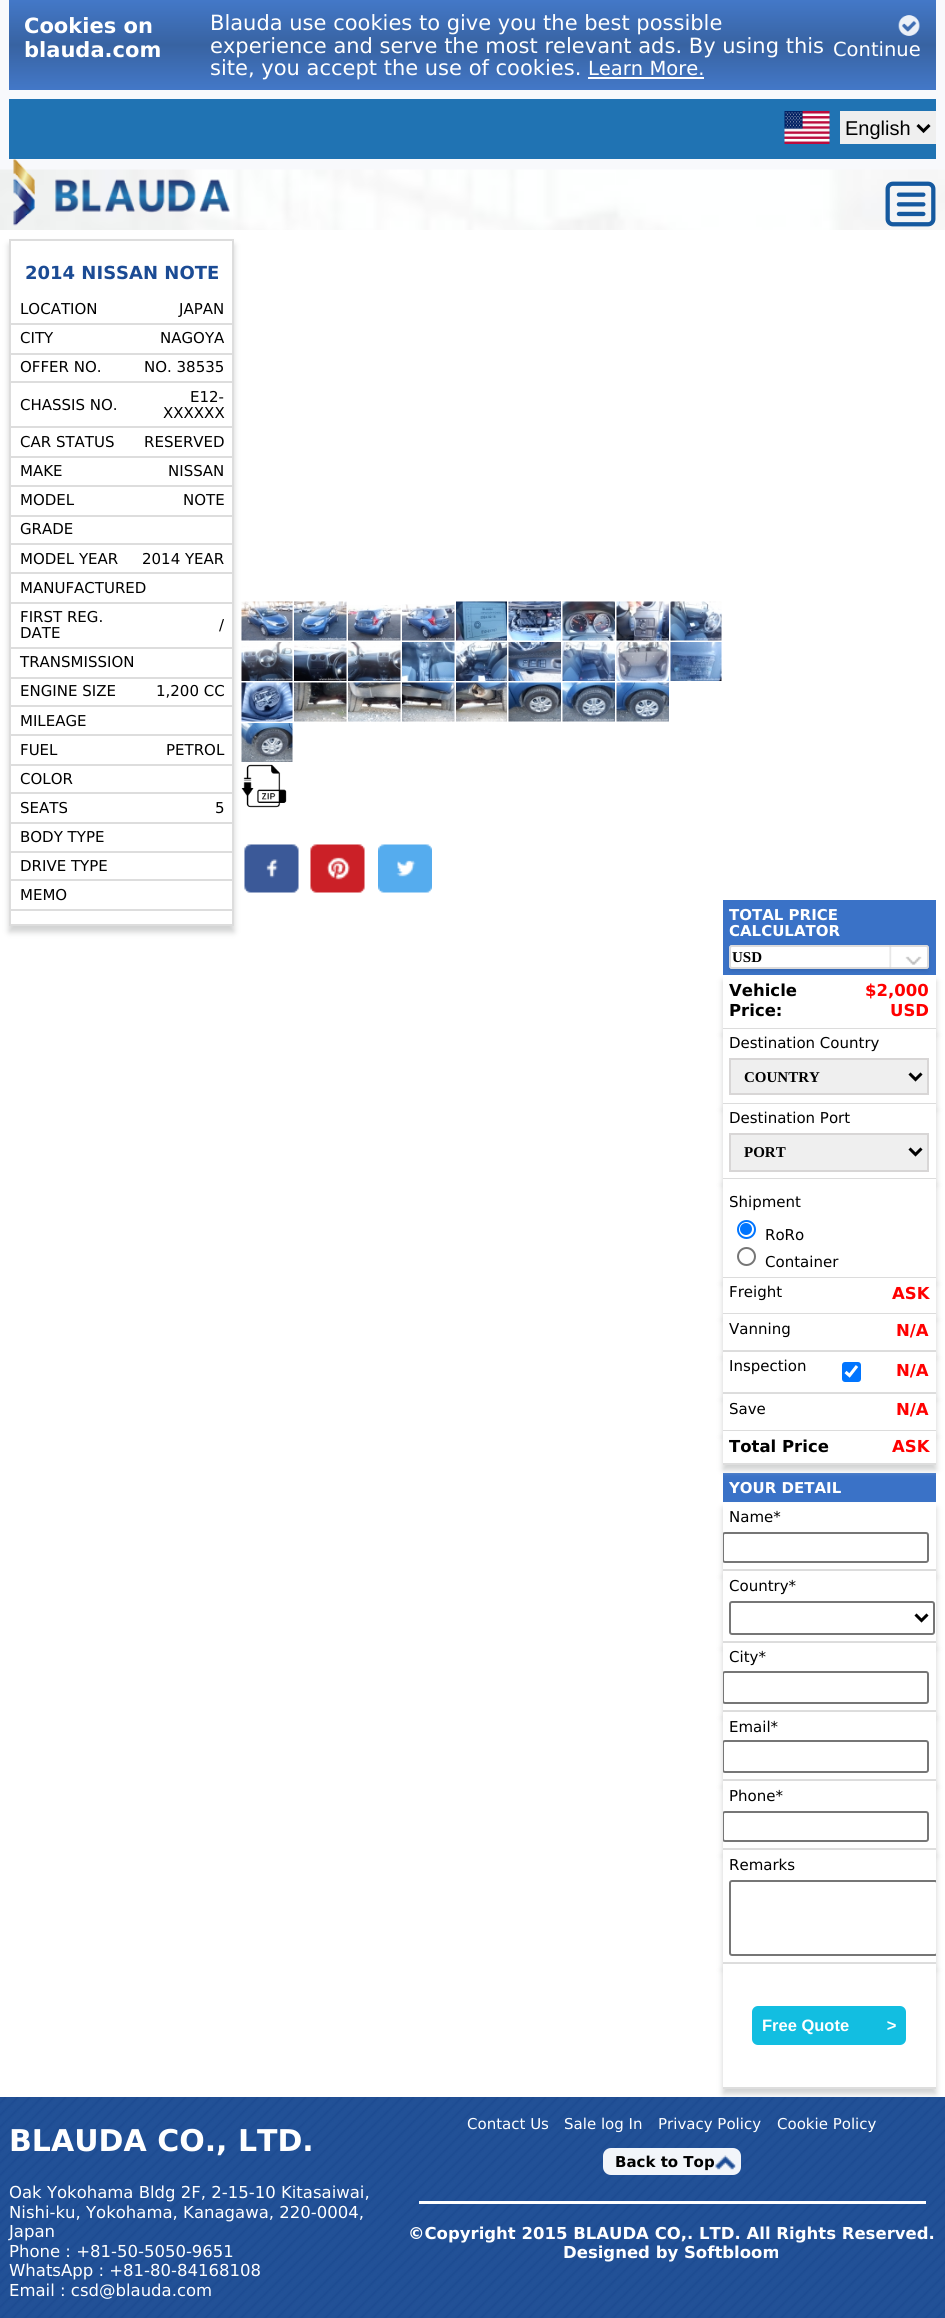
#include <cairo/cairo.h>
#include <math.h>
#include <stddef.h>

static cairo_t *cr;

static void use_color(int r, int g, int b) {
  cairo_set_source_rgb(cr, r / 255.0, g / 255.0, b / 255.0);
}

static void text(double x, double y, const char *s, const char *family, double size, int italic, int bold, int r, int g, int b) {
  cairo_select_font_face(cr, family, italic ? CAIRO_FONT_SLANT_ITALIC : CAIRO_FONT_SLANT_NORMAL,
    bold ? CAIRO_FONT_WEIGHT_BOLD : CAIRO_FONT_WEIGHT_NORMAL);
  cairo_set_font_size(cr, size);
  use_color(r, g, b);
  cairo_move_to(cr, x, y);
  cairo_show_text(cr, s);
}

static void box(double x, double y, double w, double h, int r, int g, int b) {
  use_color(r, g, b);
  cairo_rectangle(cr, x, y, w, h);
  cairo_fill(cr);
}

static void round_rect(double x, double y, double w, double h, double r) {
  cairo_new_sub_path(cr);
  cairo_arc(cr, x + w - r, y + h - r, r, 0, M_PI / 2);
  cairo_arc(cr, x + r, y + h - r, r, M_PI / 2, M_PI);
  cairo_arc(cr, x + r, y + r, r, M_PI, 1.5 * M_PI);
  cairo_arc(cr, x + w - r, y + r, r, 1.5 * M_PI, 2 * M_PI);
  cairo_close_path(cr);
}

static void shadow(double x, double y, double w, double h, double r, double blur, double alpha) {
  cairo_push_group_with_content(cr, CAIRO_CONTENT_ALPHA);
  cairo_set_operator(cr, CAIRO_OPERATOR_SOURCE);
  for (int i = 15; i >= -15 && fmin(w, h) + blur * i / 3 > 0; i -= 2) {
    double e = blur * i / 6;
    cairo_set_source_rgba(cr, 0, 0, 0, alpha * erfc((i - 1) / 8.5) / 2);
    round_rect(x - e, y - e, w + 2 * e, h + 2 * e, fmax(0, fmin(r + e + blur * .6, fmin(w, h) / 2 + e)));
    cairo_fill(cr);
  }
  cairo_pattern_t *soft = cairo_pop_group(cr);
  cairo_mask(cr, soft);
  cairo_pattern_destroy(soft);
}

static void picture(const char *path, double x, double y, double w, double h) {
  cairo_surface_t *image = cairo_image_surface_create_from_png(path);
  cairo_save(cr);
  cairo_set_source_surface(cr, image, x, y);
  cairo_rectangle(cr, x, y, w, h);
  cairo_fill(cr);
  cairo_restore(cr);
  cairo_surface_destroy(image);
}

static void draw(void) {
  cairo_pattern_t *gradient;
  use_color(248, 249, 252);
  cairo_paint(cr);
  gradient = cairo_pattern_create_linear(473, 0, 473, 90);
  cairo_pattern_add_color_stop_rgba(gradient, 0, 0.263, 0.471, 0.784, 1);
  cairo_pattern_add_color_stop_rgba(gradient, 0.5, 0.22, 0.388, 0.635, 1);
  cairo_pattern_add_color_stop_rgba(gradient, 1, 0.263, 0.471, 0.784, 1);
  cairo_set_source(cr, gradient);
  cairo_pattern_destroy(gradient);
  cairo_rectangle(cr, 9, 0, 927, 90);
  cairo_fill(cr);
  box(588, 77, 116, 2, 254, 254, 255);
  picture("img_01.png", 898, 15, 22, 21);
  box(9, 99, 927, 60, 32, 115, 179);
  picture("img_02.png", 784, 111, 46, 33);
  box(840, 111, 96, 33, 239, 239, 239);
  cairo_new_path(cr);
  cairo_move_to(cr, 917.5, 125);
  cairo_line_to(cr, 923.5, 131);
  cairo_line_to(cr, 929.5, 125);
  use_color(0, 0, 0);
  cairo_set_line_width(cr, 3);
  cairo_stroke(cr);
  picture("img_05.png", 0, 169, 945, 61);
  picture("img_03.png", 13, 159, 217, 67);
  picture("img_04.png", 885, 181, 51, 46);
  box(0, 230, 945, 1867, 255, 255, 255);
  use_color(209, 210, 210);
  shadow(9, 245, 225, 687, 0, 3, 1);
  use_color(255, 255, 255);
  cairo_rectangle(cr, 10, 240, 223, 685);
  cairo_fill_preserve(cr);
  use_color(221, 221, 221);
  cairo_set_line_width(cr, 2);
  cairo_stroke(cr);
  box(11, 323, 222, 2, 221, 221, 221);
  box(11, 353, 222, 2, 221, 221, 221);
  box(11, 381, 222, 2, 221, 221, 221);
  box(11, 426, 222, 2, 221, 221, 221);
  box(11, 456, 222, 2, 221, 221, 221);
  box(11, 485, 222, 2, 221, 221, 221);
  box(11, 515, 222, 2, 221, 221, 221);
  box(11, 543, 222, 2, 221, 221, 221);
  box(11, 572, 222, 2, 221, 221, 221);
  box(11, 602, 222, 2, 221, 221, 221);
  box(11, 647, 222, 2, 221, 221, 221);
  box(11, 677, 222, 2, 221, 221, 221);
  box(11, 705, 222, 2, 221, 221, 221);
  box(11, 734, 222, 2, 221, 221, 221);
  box(11, 764, 222, 2, 221, 221, 221);
  box(11, 792, 222, 2, 221, 221, 221);
  box(11, 822, 222, 2, 221, 221, 221);
  box(11, 851, 222, 2, 221, 221, 221);
  box(11, 879, 222, 2, 221, 221, 221);
  box(11, 909, 222, 2, 221, 221, 221);
  picture("img_06.png", 241, 601, 52, 40);
  picture("img_07.png", 294, 601, 53, 40);
  picture("img_08.png", 348, 605, 53, 36);
  picture("img_09.png", 402, 604, 53, 37);
  picture("img_10.png", 456, 601, 51, 40);
  picture("img_11.png", 508, 601, 53, 40);
  picture("img_12.png", 562, 601, 53, 40);
  picture("img_13.png", 616, 601, 53, 40);
  picture("img_14.png", 670, 601, 52, 40);
  picture("img_15.png", 241, 642, 52, 39);
  picture("img_16.png", 294, 642, 53, 39);
  picture("img_17.png", 348, 642, 53, 39);
  picture("img_18.png", 402, 642, 53, 39);
  picture("img_19.png", 456, 642, 51, 39);
  picture("img_20.png", 508, 642, 53, 39);
  picture("img_21.png", 562, 642, 53, 39);
  picture("img_22.png", 616, 642, 53, 39);
  picture("img_23.png", 670, 642, 52, 39);
  picture("img_24.png", 241, 682, 52, 40);
  picture("img_25.png", 294, 682, 53, 40);
  picture("img_26.png", 348, 682, 53, 40);
  picture("img_27.png", 402, 682, 53, 40);
  picture("img_28.png", 456, 682, 51, 40);
  picture("img_29.png", 508, 682, 53, 40);
  picture("img_30.png", 562, 682, 53, 40);
  picture("img_31.png", 616, 682, 53, 40);
  picture("img_32.png", 241, 723, 52, 39);
  picture("img_33.png", 241, 764, 46, 44);
  picture("img_34.png", 244, 844, 55, 49);
  picture("img_35.png", 310, 844, 55, 49);
  picture("img_36.png", 378, 844, 54, 49);
  box(723, 900, 213, 75, 58, 114, 199);
  use_color(0, 0, 0);
  shadow(729, 947, 200, 24, 3, 2, 0.1);
  use_color(255, 255, 255);
  round_rect(729, 945, 200, 24, 3);
  cairo_fill(cr);
  picture("img_37.png", 889, 945, 33, 24);
  round_rect(730, 946, 198, 22, 2);
  cairo_set_source_rgba(cr, 0.816, 0.808, 0.808, 0.75);
  cairo_stroke(cr);
  cairo_save(cr);
  cairo_set_fill_rule(cr, CAIRO_FILL_RULE_EVEN_ODD);
  cairo_new_path(cr);
  cairo_move_to(cr, 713, 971);
  cairo_line_to(cr, 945, 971);
  cairo_line_to(cr, 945, 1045);
  cairo_line_to(cr, 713, 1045);
  cairo_close_path(cr);
  cairo_move_to(cr, 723, 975);
  cairo_line_to(cr, 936, 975);
  cairo_line_to(cr, 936, 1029);
  cairo_line_to(cr, 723, 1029);
  cairo_close_path(cr);
  cairo_clip(cr);
  use_color(209, 210, 210);
  shadow(723, 981, 213, 54, 0, 3, 1);
  cairo_restore(cr);
  box(723, 1028, 213, 1, 221, 221, 221);
  use_color(209, 210, 210);
  shadow(723, 1035, 213, 75, 0, 3, 1);
  box(723, 1029, 213, 74, 255, 255, 255);
  box(723, 1103, 213, 1, 221, 221, 221);
  use_color(239, 239, 239);
  cairo_rectangle(cr, 730, 1059, 198, 35);
  cairo_fill_preserve(cr);
  use_color(216, 214, 214);
  cairo_stroke(cr);
  cairo_new_path(cr);
  cairo_move_to(cr, 909.5, 1073.5);
  cairo_line_to(cr, 915.5, 1079.5);
  cairo_line_to(cr, 921.5, 1073.5);
  use_color(0, 0, 0);
  cairo_set_line_width(cr, 3);
  cairo_stroke(cr);
  use_color(209, 210, 210);
  shadow(723, 1110, 213, 75, 0, 3, 1);
  box(723, 1104, 213, 74, 255, 255, 255);
  box(723, 1178, 213, 1, 221, 221, 221);
  use_color(239, 239, 239);
  cairo_rectangle(cr, 730, 1134, 198, 37);
  cairo_fill_preserve(cr);
  use_color(216, 214, 214);
  cairo_set_line_width(cr, 2);
  cairo_stroke(cr);
  cairo_new_path(cr);
  cairo_move_to(cr, 909.5, 1148.5);
  cairo_line_to(cr, 915.5, 1154.5);
  cairo_line_to(cr, 921.5, 1148.5);
  use_color(0, 0, 0);
  cairo_set_line_width(cr, 3);
  cairo_stroke(cr);
  use_color(209, 210, 210);
  shadow(723, 1185, 213, 99, 0, 3, 1);
  box(723, 1179, 213, 98, 255, 255, 255);
  box(723, 1277, 213, 1, 221, 221, 221);
  cairo_arc(cr, 746.5, 1229.5, 8.5, 0, 2 * M_PI);
  use_color(0, 117, 255);
  cairo_set_line_width(cr, 2);
  cairo_stroke(cr);
  cairo_arc(cr, 746, 1229, 6, 0, 2 * M_PI);
  cairo_fill(cr);
  cairo_arc(cr, 746.5, 1256.5, 8.5, 0, 2 * M_PI);
  use_color(118, 118, 118);
  cairo_stroke(cr);
  use_color(209, 210, 210);
  shadow(723, 1284, 213, 36, 0, 3, 1);
  box(723, 1278, 213, 35, 255, 255, 255);
  box(723, 1313, 213, 1, 221, 221, 221);
  use_color(209, 210, 210);
  shadow(723, 1320, 213, 38, 0, 3, 1);
  box(723, 1314, 213, 36, 255, 255, 255);
  box(723, 1350, 213, 2, 221, 221, 221);
  use_color(209, 210, 210);
  shadow(723, 1358, 213, 42, 0, 3, 1);
  box(723, 1352, 213, 40, 255, 255, 255);
  box(723, 1392, 213, 2, 221, 221, 221);
  use_color(0, 117, 255);
  round_rect(842, 1362, 19, 20, 3);
  cairo_fill(cr);
  cairo_new_path(cr);
  cairo_move_to(cr, 845.5, 1372);
  cairo_line_to(cr, 849.5, 1375.5);
  cairo_line_to(cr, 857, 1366);
  use_color(255, 255, 255);
  cairo_set_line_width(cr, 3.1);
  cairo_stroke(cr);
  use_color(209, 210, 210);
  shadow(723, 1400, 213, 37, 0, 3, 1);
  box(723, 1394, 213, 36, 255, 255, 255);
  box(723, 1430, 213, 1, 221, 221, 221);
  box(723, 1473, 213, 29, 58, 114, 199);
  use_color(209, 210, 210);
  shadow(723, 1437, 213, 33, 0, 3, 1);
  box(723, 1431, 213, 32, 255, 255, 255);
  box(723, 1463, 213, 2, 221, 221, 221);
  use_color(209, 210, 210);
  shadow(723, 1508, 213, 69, 0, 3, 1);
  box(723, 1503, 213, 66, 255, 255, 255);
  box(723, 1569, 213, 2, 221, 221, 221);
  cairo_save(cr);
  cairo_rectangle(cr, 723, 1502, 213, 67);
  cairo_clip(cr);
  round_rect(723, 1533, 205, 29, 2);
  use_color(118, 118, 118);
  cairo_set_line_width(cr, 2);
  cairo_stroke(cr);
  cairo_restore(cr);
  use_color(209, 210, 210);
  shadow(723, 1577, 213, 72, 0, 3, 1);
  box(723, 1571, 213, 70, 255, 255, 255);
  box(723, 1641, 213, 2, 221, 221, 221);
  round_rect(730, 1602, 204, 32, 2);
  use_color(118, 118, 118);
  cairo_set_line_width(cr, 2);
  cairo_stroke(cr);
  cairo_new_path(cr);
  cairo_move_to(cr, 915.5, 1614.5);
  cairo_line_to(cr, 921.5, 1620.5);
  cairo_line_to(cr, 927.5, 1614.5);
  use_color(0, 0, 0);
  cairo_set_line_width(cr, 3);
  cairo_stroke(cr);
  use_color(209, 210, 210);
  shadow(723, 1649, 213, 69, 0, 3, 1);
  box(723, 1643, 213, 67, 255, 255, 255);
  box(723, 1710, 213, 2, 221, 221, 221);
  cairo_save(cr);
  cairo_rectangle(cr, 723, 1643, 213, 67);
  cairo_clip(cr);
  round_rect(723, 1672, 205, 31, 2);
  use_color(118, 118, 118);
  cairo_set_line_width(cr, 2);
  cairo_stroke(cr);
  cairo_restore(cr);
  use_color(209, 210, 210);
  shadow(723, 1718, 213, 69, 0, 3, 1);
  box(723, 1712, 213, 67, 255, 255, 255);
  box(723, 1779, 213, 2, 221, 221, 221);
  cairo_save(cr);
  cairo_rectangle(cr, 723, 1712, 213, 67);
  cairo_clip(cr);
  round_rect(723, 1741, 205, 31, 2);
  use_color(118, 118, 118);
  cairo_set_line_width(cr, 2);
  cairo_stroke(cr);
  cairo_restore(cr);
  use_color(209, 210, 210);
  shadow(723, 1787, 213, 69, 0, 3, 1);
  box(723, 1781, 213, 67, 255, 255, 255);
  box(723, 1848, 213, 2, 221, 221, 221);
  cairo_save(cr);
  cairo_rectangle(cr, 723, 1781, 213, 67);
  cairo_clip(cr);
  round_rect(723, 1812, 205, 29, 2);
  use_color(118, 118, 118);
  cairo_set_line_width(cr, 2);
  cairo_stroke(cr);
  cairo_restore(cr);
  use_color(209, 210, 210);
  shadow(723, 1856, 213, 114, 0, 3, 1);
  box(723, 1850, 213, 112, 255, 255, 255);
  box(723, 1962, 213, 2, 221, 221, 221);
  cairo_save(cr);
  cairo_rectangle(cr, 723, 1850, 213, 112);
  cairo_clip(cr);
  round_rect(730, 1881, 207, 74, 2);
  use_color(118, 118, 118);
  cairo_set_line_width(cr, 2);
  cairo_stroke(cr);
  cairo_restore(cr);
  picture("img_38.png", 0, 2097, 945, 221);
  cairo_save(cr);
  cairo_rectangle(cr, 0, 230, 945, 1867);
  cairo_clip(cr);
  use_color(209, 210, 210);
  shadow(723, 1970, 213, 124, 0, 3, 1);
  cairo_restore(cr);
  box(723, 1964, 213, 123, 255, 255, 255);
  box(723, 2087, 213, 2, 221, 221, 221);
  use_color(18, 190, 225);
  round_rect(752, 2006, 154, 39, 6);
  cairo_fill(cr);
  use_color(242, 245, 250);
  round_rect(603, 2148, 138, 27, 8);
  cairo_fill(cr);
  picture("img_39.png", 715, 2155, 21, 15);
  box(419, 2201, 507, 3, 255, 255, 255);
  text(24, 33, "Cookies on", "DejaVu Sans", 21, 0, 1, 255, 255, 255);
  text(24, 57, "blauda.com", "DejaVu Sans", 21, 0, 1, 255, 255, 255);
  text(210, 30, "Blauda use cookies to give you the best possible", "DejaVu Sans", 21, 0, 0, 255, 255, 255);
  text(210, 53, "experience and serve the most relevant ads. By using this", "DejaVu Sans", 21, 0, 0, 255, 255, 255);
  text(210, 75, "site, you accept the use of cookies.", "DejaVu Sans", 21, 0, 0, 255, 255, 255);
  text(588, 75, "Learn More.", "DejaVu Sans", 19.5, 0, 0, 255, 255, 255);
  text(833, 56, "Continue", "DejaVu Sans", 19.5, 0, 0, 255, 255, 255);
  text(845, 135, "English", "Liberation Sans", 20, 0, 0, 0, 0, 0);
  text(25, 279, "2014 NISSAN NOTE", "DejaVu Sans", 18, 0, 1, 27, 75, 148);
  text(20, 314, "LOCATION", "DejaVu Sans", 15, 0, 0, 0, 0, 0);
  text(179, 314, "JAPAN", "DejaVu Sans", 15, 0, 0, 0, 0, 0);
  text(20, 343, "CITY", "DejaVu Sans", 15, 0, 0, 0, 0, 0);
  text(160, 343, "NAGOYA", "DejaVu Sans", 15, 0, 0, 0, 0, 0);
  text(20, 372, "OFFER NO.", "DejaVu Sans", 15, 0, 0, 0, 0, 0);
  text(144, 372, "NO. 38535", "DejaVu Sans", 15, 0, 0, 0, 0, 0);
  text(20, 410, "CHASSIS NO.", "DejaVu Sans", 15, 0, 0, 0, 0, 0);
  text(190, 402, "E12-", "DejaVu Sans", 15, 0, 0, 0, 0, 0);
  text(163, 418, "XXXXXX", "DejaVu Sans", 15, 0, 0, 0, 0, 0);
  text(20, 447, "CAR STATUS", "DejaVu Sans", 15, 0, 0, 0, 0, 0);
  text(144, 447, "RESERVED", "DejaVu Sans", 15, 0, 0, 0, 0, 0);
  text(20, 476, "MAKE", "DejaVu Sans", 15, 0, 0, 0, 0, 0);
  text(168, 476, "NISSAN", "DejaVu Sans", 15, 0, 0, 0, 0, 0);
  text(20, 505, "MODEL", "DejaVu Sans", 15, 0, 0, 0, 0, 0);
  text(183, 505, "NOTE", "DejaVu Sans", 15, 0, 0, 0, 0, 0);
  text(20, 534, "GRADE", "DejaVu Sans", 15, 0, 0, 0, 0, 0);
  text(20, 564, "MODEL YEAR", "DejaVu Sans", 15, 0, 0, 0, 0, 0);
  text(142, 564, "2014 YEAR", "DejaVu Sans", 15, 0, 0, 0, 0, 0);
  text(20, 593, "MANUFACTURED", "DejaVu Sans", 15, 0, 0, 0, 0, 0);
  text(20, 622, "FIRST REG.", "DejaVu Sans", 15, 0, 0, 0, 0, 0);
  text(20, 638, "DATE", "DejaVu Sans", 15, 0, 0, 0, 0, 0);
  text(219, 630, "/", "DejaVu Sans", 15, 0, 0, 0, 0, 0);
  text(20, 667, "TRANSMISSION", "DejaVu Sans", 15, 0, 0, 0, 0, 0);
  text(20, 696, "ENGINE SIZE", "DejaVu Sans", 15, 0, 0, 0, 0, 0);
  text(156, 696, "1,200 CC", "DejaVu Sans", 15, 0, 0, 0, 0, 0);
  text(20, 726, "MILEAGE", "DejaVu Sans", 15, 0, 0, 0, 0, 0);
  text(20, 755, "FUEL", "DejaVu Sans", 15, 0, 0, 0, 0, 0);
  text(166, 755, "PETROL", "DejaVu Sans", 15, 0, 0, 0, 0, 0);
  text(20, 784, "COLOR", "DejaVu Sans", 15, 0, 0, 0, 0, 0);
  text(20, 813, "SEATS", "DejaVu Sans", 15, 0, 0, 0, 0, 0);
  text(215, 813, "5", "DejaVu Sans", 15, 0, 0, 0, 0, 0);
  text(20, 842, "BODY TYPE", "DejaVu Sans", 15, 0, 0, 0, 0, 0);
  text(20, 871, "DRIVE TYPE", "DejaVu Sans", 15, 0, 0, 0, 0, 0);
  text(20, 900, "MEMO", "DejaVu Sans", 15, 0, 0, 0, 0, 0);
  text(729, 920, "TOTAL PRICE", "DejaVu Sans", 15, 0, 1, 255, 255, 255);
  text(729, 936, "CALCULATOR", "DejaVu Sans", 15, 0, 1, 255, 255, 255);
  text(732, 962, "USD", "Liberation Serif", 15, 0, 1, 0, 0, 0);
  text(729, 996, "Vehicle", "DejaVu Sans", 16.5, 0, 1, 0, 0, 0);
  text(729, 1016, "Price:", "DejaVu Sans", 16.5, 0, 1, 0, 0, 0);
  text(865, 996, "$2,000", "DejaVu Sans", 16.5, 0, 1, 255, 0, 0);
  text(890, 1016, "USD", "DejaVu Sans", 16.5, 0, 1, 255, 0, 0);
  text(729, 1048, "Destination Country", "DejaVu Sans", 15, 0, 0, 0, 0, 0);
  text(744, 1082, "COUNTRY", "Liberation Serif", 15, 0, 1, 0, 0, 0);
  text(729, 1123, "Destination Port", "DejaVu Sans", 15, 0, 0, 0, 0, 0);
  text(744, 1157, "PORT", "Liberation Serif", 15, 0, 1, 0, 0, 0);
  text(729, 1207, "Shipment", "DejaVu Sans", 15, 0, 0, 0, 0, 0);
  text(765, 1240, "RoRo", "DejaVu Sans", 15, 0, 0, 0, 0, 0);
  text(765, 1267, "Container", "DejaVu Sans", 15, 0, 0, 0, 0, 0);
  text(729, 1297, "Freight", "DejaVu Sans", 15, 0, 0, 0, 0, 0);
  text(892, 1299, "ASK", "DejaVu Sans", 16.5, 0, 1, 255, 0, 0);
  text(729, 1334, "Vanning", "DejaVu Sans", 15, 0, 0, 0, 0, 0);
  text(896, 1336, "N/A", "DejaVu Sans", 16.5, 0, 1, 255, 0, 0);
  text(729, 1371, "Inspection", "DejaVu Sans", 15, 0, 0, 0, 0, 0);
  text(896, 1376, "N/A", "DejaVu Sans", 16.5, 0, 1, 255, 0, 0);
  text(729, 1414, "Save", "DejaVu Sans", 15, 0, 0, 0, 0, 0);
  text(896, 1415, "N/A", "DejaVu Sans", 16.5, 0, 1, 255, 0, 0);
  text(729, 1452, "Total Price", "DejaVu Sans", 16.5, 0, 1, 0, 0, 0);
  text(892, 1452, "ASK", "DejaVu Sans", 16.5, 0, 1, 255, 0, 0);
  text(729, 1493, "YOUR DETAIL", "DejaVu Sans", 15, 0, 1, 255, 255, 255);
  text(729, 1522, "Name*", "DejaVu Sans", 15, 0, 0, 0, 0, 0);
  text(729, 1591, "Country*", "DejaVu Sans", 15, 0, 0, 0, 0, 0);
  text(729, 1662, "City*", "DejaVu Sans", 15, 0, 0, 0, 0, 0);
  text(729, 1732, "Email*", "DejaVu Sans", 15, 0, 0, 0, 0, 0);
  text(729, 1801, "Phone*", "DejaVu Sans", 15, 0, 0, 0, 0, 0);
  text(729, 1870, "Remarks", "DejaVu Sans", 15, 0, 0, 0, 0, 0);
  text(762, 2031, "Free Quote   >", "Liberation Sans", 16.5, 0, 1, 255, 255, 255);
  text(9, 2151, "BLAUDA CO., LTD.", "DejaVu Sans", 30, 0, 1, 255, 255, 255);
  text(9, 2198, "Oak Yokohama Bldg 2F, 2-15-10 Kitasaiwai,", "DejaVu Sans", 16.5, 0, 0, 255, 255, 255);
  text(9, 2218, "Nishi-ku, Yokohama, Kanagawa, 220-0004,", "DejaVu Sans", 16.5, 0, 0, 255, 255, 255);
  text(9, 2237, "Japan", "DejaVu Sans", 16.5, 0, 0, 255, 255, 255);
  text(9, 2257, "Phone : +81-50-5050-9651", "DejaVu Sans", 16.5, 0, 0, 255, 255, 255);
  text(9, 2276, "WhatsApp : +81-80-84168108", "DejaVu Sans", 16.5, 0, 0, 255, 255, 255);
  text(9, 2296, "Email : csd@blauda.com", "DejaVu Sans", 16.5, 0, 0, 255, 255, 255);
  text(467, 2129, "Contact Us", "DejaVu Sans", 15, 0, 0, 255, 255, 255);
  text(564, 2129, "Sale log In", "DejaVu Sans", 15, 0, 0, 255, 255, 255);
  text(658, 2129, "Privacy Policy", "DejaVu Sans", 15, 0, 0, 255, 255, 255);
  text(777, 2129, "Cookie Policy", "DejaVu Sans", 15, 0, 0, 255, 255, 255);
  text(615, 2167, "Back to Top", "DejaVu Sans", 15, 0, 1, 0, 0, 0);
  text(408, 2239, "©Copyright 2015 BLAUDA CO,. LTD. All Rights Reserved.", "DejaVu Sans", 16.5, 0, 1, 255, 255, 255);
  text(563, 2258, "Designed by Softbloom", "DejaVu Sans", 16.5, 0, 1, 255, 255, 255);
}

int main(void) {
  cairo_surface_t *surface = cairo_image_surface_create(CAIRO_FORMAT_RGB24, 945, 2318);
  cr = cairo_create(surface);
  cairo_font_options_t *options = cairo_font_options_create();
  cairo_font_options_set_hint_metrics(options, CAIRO_HINT_METRICS_OFF);
  cairo_font_options_set_hint_style(options, CAIRO_HINT_STYLE_NONE);
  cairo_set_font_options(cr, options);
  cairo_set_miter_limit(cr, 4);
  draw();
  cairo_surface_write_to_png(surface, "out.png");
  cairo_font_options_destroy(options);
  cairo_destroy(cr);
  cairo_surface_destroy(surface);
  return 0;
}
